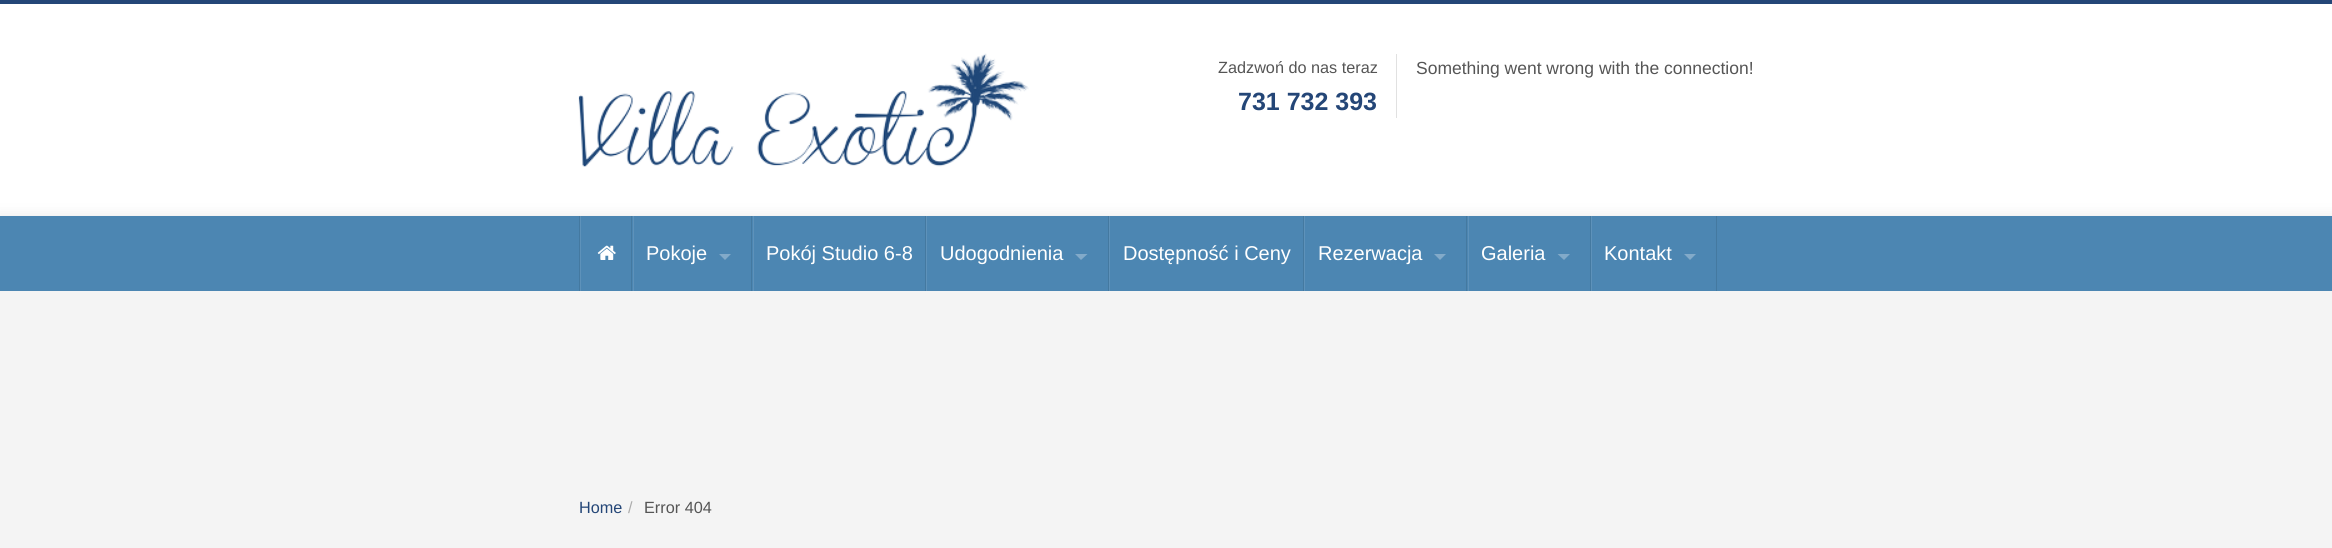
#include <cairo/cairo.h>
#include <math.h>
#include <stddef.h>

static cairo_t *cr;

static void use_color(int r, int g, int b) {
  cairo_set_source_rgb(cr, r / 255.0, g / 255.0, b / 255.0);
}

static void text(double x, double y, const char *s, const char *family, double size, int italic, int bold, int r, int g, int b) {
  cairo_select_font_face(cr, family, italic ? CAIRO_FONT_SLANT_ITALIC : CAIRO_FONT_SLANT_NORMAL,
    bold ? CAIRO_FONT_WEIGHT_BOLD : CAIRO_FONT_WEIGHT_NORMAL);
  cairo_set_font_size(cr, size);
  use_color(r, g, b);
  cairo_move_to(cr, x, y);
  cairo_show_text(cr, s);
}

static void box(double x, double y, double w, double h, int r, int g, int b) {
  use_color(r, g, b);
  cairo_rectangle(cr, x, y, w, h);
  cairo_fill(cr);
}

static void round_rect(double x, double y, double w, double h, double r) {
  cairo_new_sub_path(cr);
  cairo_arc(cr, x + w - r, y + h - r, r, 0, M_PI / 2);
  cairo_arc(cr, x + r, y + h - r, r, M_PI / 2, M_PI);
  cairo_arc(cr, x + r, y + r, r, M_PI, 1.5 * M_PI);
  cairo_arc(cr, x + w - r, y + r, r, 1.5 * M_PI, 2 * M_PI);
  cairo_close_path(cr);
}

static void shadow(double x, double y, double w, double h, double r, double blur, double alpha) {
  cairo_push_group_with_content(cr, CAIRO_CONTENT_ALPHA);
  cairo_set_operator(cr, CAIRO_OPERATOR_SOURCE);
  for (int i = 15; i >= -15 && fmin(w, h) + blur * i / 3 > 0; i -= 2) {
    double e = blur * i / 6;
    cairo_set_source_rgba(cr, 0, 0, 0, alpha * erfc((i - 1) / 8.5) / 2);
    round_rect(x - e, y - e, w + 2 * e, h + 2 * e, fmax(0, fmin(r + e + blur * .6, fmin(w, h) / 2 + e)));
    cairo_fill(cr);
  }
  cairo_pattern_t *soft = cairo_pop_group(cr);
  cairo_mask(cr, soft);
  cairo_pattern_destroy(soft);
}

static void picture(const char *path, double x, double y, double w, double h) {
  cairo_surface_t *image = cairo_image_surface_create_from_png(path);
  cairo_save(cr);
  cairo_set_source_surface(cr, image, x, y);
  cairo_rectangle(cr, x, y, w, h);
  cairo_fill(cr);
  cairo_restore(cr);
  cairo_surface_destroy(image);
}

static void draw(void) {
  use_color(255, 255, 255);
  cairo_paint(cr);
  box(0, 0, 2332, 4, 36, 70, 119);
  picture("img_01.png", 578, 53, 451, 114);
  box(1396, 54, 1, 64, 225, 225, 225);
  use_color(85, 85, 85);
  shadow(-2, 214, 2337, 80, 0, 6, 0.1);
  box(0, 216, 2332, 75, 76, 134, 178);
  box(579, 216, 1, 75, 68, 121, 160);
  box(631, 216, 1, 75, 68, 121, 160);
  box(580, 216, 1, 75, 94, 146, 186);
  picture("img_02.png", 597, 245, 19, 15);
  box(751, 216, 1, 75, 68, 121, 160);
  box(633, 216, 1, 75, 94, 146, 186);
  use_color(130, 170, 201);
  cairo_new_path(cr);
  cairo_move_to(cr, 719, 254);
  cairo_line_to(cr, 731, 254);
  cairo_line_to(cr, 725, 260);
  cairo_close_path(cr);
  cairo_fill(cr);
  box(925, 216, 1, 75, 68, 121, 160);
  box(753, 216, 1, 75, 94, 146, 186);
  box(1108, 216, 1, 75, 68, 121, 160);
  box(926, 216, 1, 75, 94, 146, 186);
  use_color(130, 170, 201);
  cairo_new_path(cr);
  cairo_move_to(cr, 1075, 254);
  cairo_line_to(cr, 1087.5, 254);
  cairo_line_to(cr, 1081, 260);
  cairo_close_path(cr);
  cairo_fill(cr);
  box(1303, 216, 1, 75, 68, 121, 160);
  box(1109, 216, 1, 75, 94, 146, 186);
  box(1466, 216, 1, 75, 68, 121, 160);
  box(1304, 216, 1, 75, 94, 146, 186);
  use_color(130, 170, 201);
  cairo_new_path(cr);
  cairo_move_to(cr, 1434, 254);
  cairo_line_to(cr, 1446, 254);
  cairo_line_to(cr, 1440, 260);
  cairo_close_path(cr);
  cairo_fill(cr);
  box(1590, 216, 1, 75, 68, 121, 160);
  box(1468, 216, 1, 75, 94, 146, 186);
  use_color(130, 170, 201);
  cairo_new_path(cr);
  cairo_move_to(cr, 1557.5, 254);
  cairo_line_to(cr, 1570, 254);
  cairo_line_to(cr, 1564, 260);
  cairo_close_path(cr);
  cairo_fill(cr);
  box(1716, 216, 1, 75, 68, 121, 160);
  box(1591, 216, 1, 75, 94, 146, 186);
  use_color(130, 170, 201);
  cairo_new_path(cr);
  cairo_move_to(cr, 1684, 254);
  cairo_line_to(cr, 1696, 254);
  cairo_line_to(cr, 1690, 260);
  cairo_close_path(cr);
  cairo_fill(cr);
  box(0, 291, 2332, 257, 244, 244, 244);
  text(1218, 73, "Zadzwoń do nas teraz", "Liberation Sans", 16.25, 0, 0, 85, 85, 85);
  text(1238, 110, "731 732 393", "Liberation Sans", 25, 0, 1, 36, 70, 119);
  text(1416, 74, "Something went wrong with the connection!", "Liberation Sans", 17.5, 0, 0, 85, 85, 85);
  text(646, 260, "Pokoje", "Liberation Sans", 20, 0, 0, 255, 255, 255);
  text(766, 260, "Pokój Studio 6-8", "Liberation Sans", 20, 0, 0, 255, 255, 255);
  text(940, 260, "Udogodnienia", "Liberation Sans", 20, 0, 0, 255, 255, 255);
  text(1123, 260, "Dostępność i Ceny", "Liberation Sans", 20, 0, 0, 255, 255, 255);
  text(1318, 260, "Rezerwacja", "Liberation Sans", 20, 0, 0, 255, 255, 255);
  text(1481, 260, "Galeria", "Liberation Sans", 20, 0, 0, 255, 255, 255);
  text(1604, 260, "Kontakt", "Liberation Sans", 20, 0, 0, 255, 255, 255);
  text(579, 513, "Home", "Liberation Sans", 16.25, 0, 0, 36, 70, 119);
  text(628, 513, "/", "Liberation Sans", 16.25, 0, 0, 172, 172, 172);
  text(644, 513, "Error 404", "Liberation Sans", 16.25, 0, 0, 85, 85, 85);
}

int main(void) {
  cairo_surface_t *surface = cairo_image_surface_create(CAIRO_FORMAT_RGB24, 2332, 548);
  cr = cairo_create(surface);
  cairo_font_options_t *options = cairo_font_options_create();
  cairo_font_options_set_hint_metrics(options, CAIRO_HINT_METRICS_OFF);
  cairo_font_options_set_hint_style(options, CAIRO_HINT_STYLE_NONE);
  cairo_set_font_options(cr, options);
  cairo_set_miter_limit(cr, 4);
  draw();
  cairo_surface_write_to_png(surface, "out.png");
  cairo_font_options_destroy(options);
  cairo_destroy(cr);
  cairo_surface_destroy(surface);
  return 0;
}
